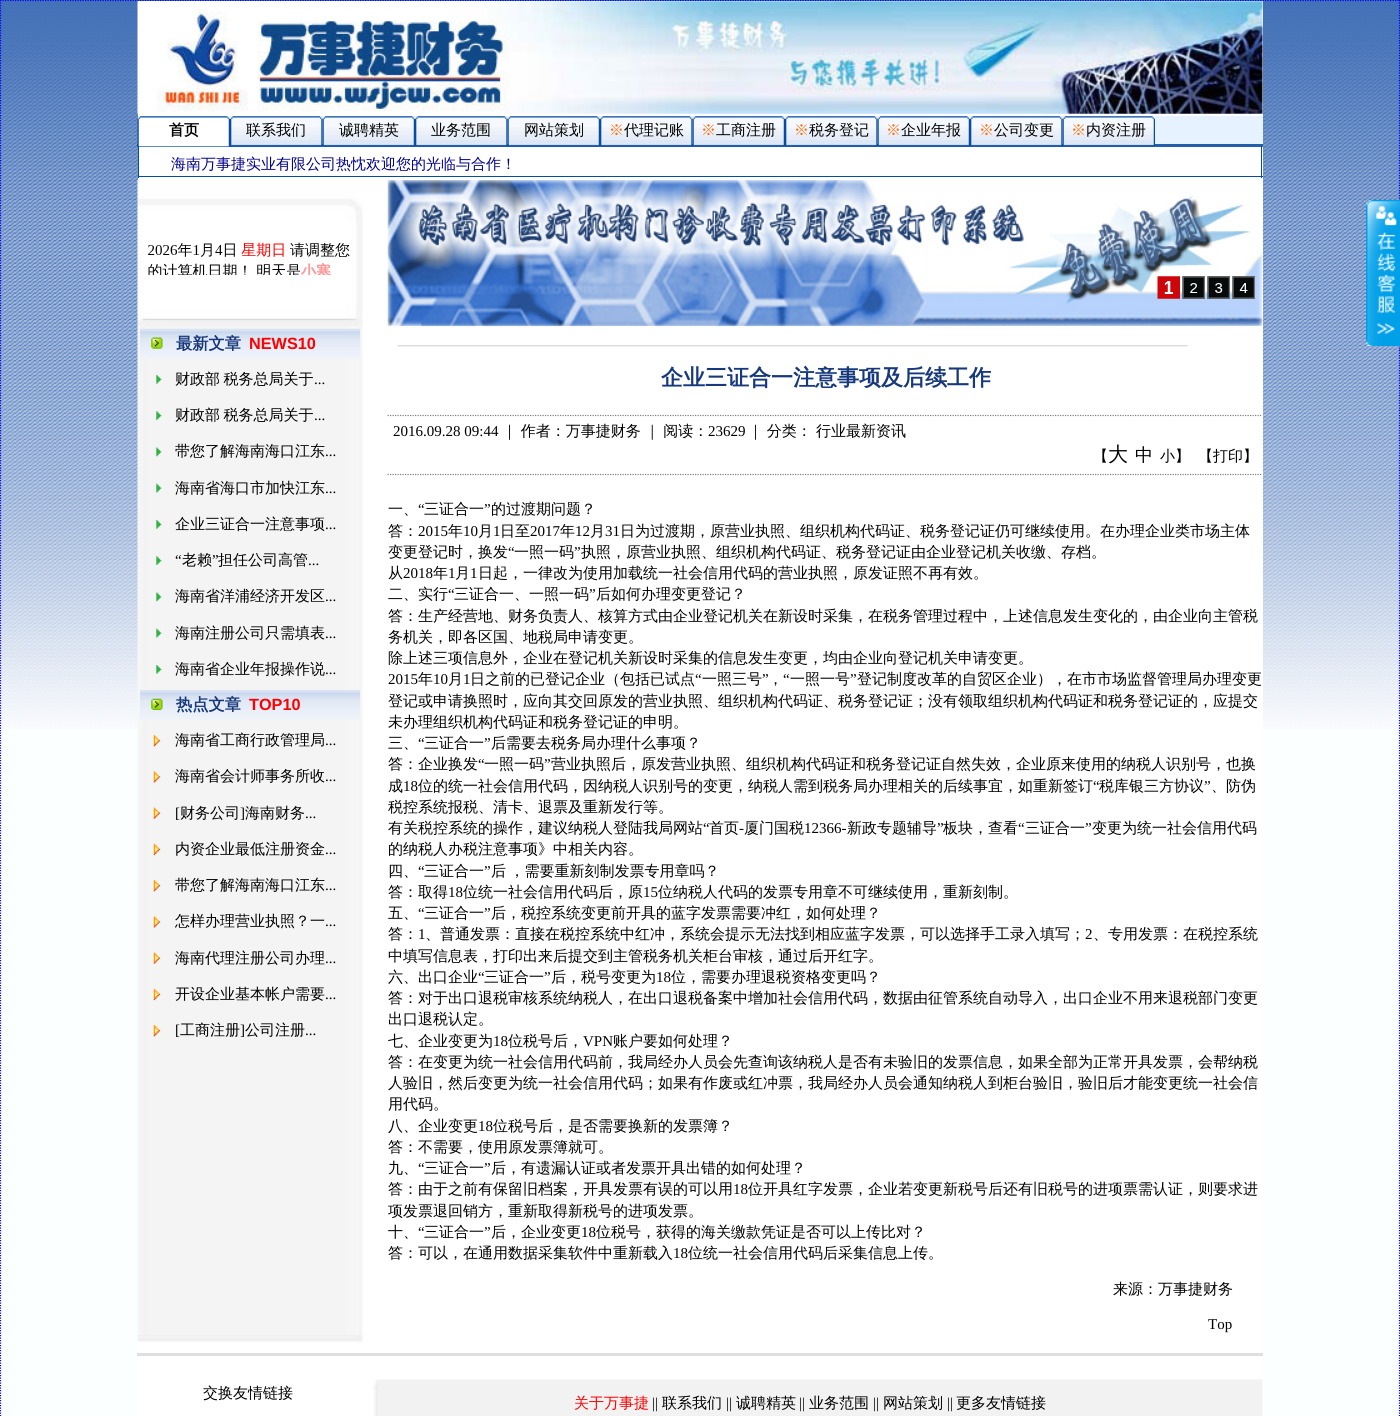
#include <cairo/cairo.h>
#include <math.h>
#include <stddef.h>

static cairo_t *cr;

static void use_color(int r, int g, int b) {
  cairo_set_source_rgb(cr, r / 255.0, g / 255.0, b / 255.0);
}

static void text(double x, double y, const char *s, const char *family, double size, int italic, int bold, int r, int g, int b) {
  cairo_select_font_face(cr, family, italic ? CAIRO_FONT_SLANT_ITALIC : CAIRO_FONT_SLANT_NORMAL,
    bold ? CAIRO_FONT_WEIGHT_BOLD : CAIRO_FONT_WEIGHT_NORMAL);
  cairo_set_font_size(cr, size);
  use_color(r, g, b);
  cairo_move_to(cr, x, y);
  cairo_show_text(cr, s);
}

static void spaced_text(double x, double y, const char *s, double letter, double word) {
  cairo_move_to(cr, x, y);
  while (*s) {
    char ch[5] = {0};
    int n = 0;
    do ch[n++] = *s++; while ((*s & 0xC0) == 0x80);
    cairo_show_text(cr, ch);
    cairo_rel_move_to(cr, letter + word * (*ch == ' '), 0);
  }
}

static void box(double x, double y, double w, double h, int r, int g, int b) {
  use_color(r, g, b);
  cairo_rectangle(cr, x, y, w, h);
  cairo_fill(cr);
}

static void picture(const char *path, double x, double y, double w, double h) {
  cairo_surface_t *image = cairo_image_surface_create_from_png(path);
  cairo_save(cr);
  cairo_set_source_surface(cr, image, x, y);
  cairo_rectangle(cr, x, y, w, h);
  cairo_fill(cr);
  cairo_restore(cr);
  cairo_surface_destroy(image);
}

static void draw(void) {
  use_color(252, 255, 255);
  cairo_paint(cr);
  picture("img_01.png", 0, 0, 1400, 729);
  cairo_new_path(cr);
  cairo_move_to(cr, 0, 0.5);
  cairo_line_to(cr, 1400, 0.5);
  use_color(0, 0, 255);
  cairo_set_line_width(cr, 1.2);
  cairo_set_dash(cr, (double[]){1.25, 1.25}, 2, 0);
  cairo_stroke(cr);
  cairo_new_path(cr);
  cairo_move_to(cr, 1399.5, 0);
  cairo_line_to(cr, 1399.5, 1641);
  cairo_stroke(cr);
  cairo_new_path(cr);
  cairo_move_to(cr, 0.5, 0);
  cairo_line_to(cr, 0.5, 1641);
  cairo_stroke(cr);
  box(138, 1, 1125, 1415, 255, 255, 255);
  picture("img_02.png", 137, 1, 1126, 113);
  box(138, 116, 1125, 30, 230, 242, 255);
  cairo_set_source_rgba(cr, 0.024, 0.294, 0.627, 0.87);
  cairo_rectangle(cr, 137, 144, 1126, 3);
  cairo_fill(cr);
  box(1261, 146, 1, 32, 6, 76, 161);
  box(138, 176, 1125, 1, 6, 76, 161);
  box(138, 146, 1, 32, 6, 76, 161);
  picture("img_03.png", 137, 116, 93, 31);
  picture("img_04.png", 230, 116, 93, 31);
  picture("img_05.png", 322, 116, 93, 31);
  picture("img_06.png", 415, 116, 93, 31);
  picture("img_05.png", 507, 116, 93, 31);
  picture("img_04.png", 600, 116, 93, 31);
  picture("img_05.png", 692, 116, 93, 31);
  picture("img_04.png", 785, 116, 93, 31);
  picture("img_05.png", 877, 116, 93, 31);
  picture("img_06.png", 970, 116, 93, 31);
  picture("img_05.png", 1062, 116, 93, 31);
  picture("img_07.png", 137, 180, 226, 147);
  picture("img_08.png", 148, 242, 202, 33);
  picture("img_09.png", 387, 180, 876, 147);
  picture("img_10.png", 137, 326, 226, 1009);
  picture("img_11.png", 140, 328, 220, 31);
  picture("img_12.png", 151, 337, 12, 12);
  picture("img_13.png", 156, 375, 6, 9);
  picture("img_14.png", 156, 411, 6, 9);
  picture("img_15.png", 156, 447, 6, 10);
  picture("img_16.png", 156, 483, 6, 10);
  picture("img_13.png", 156, 520, 6, 9);
  picture("img_14.png", 156, 556, 6, 9);
  picture("img_15.png", 156, 592, 6, 10);
  picture("img_16.png", 156, 628, 6, 10);
  picture("img_13.png", 156, 665, 6, 9);
  picture("img_17.png", 140, 690, 220, 30);
  picture("img_18.png", 151, 698, 12, 12);
  picture("img_19.png", 153, 735, 8, 12);
  picture("img_20.png", 153, 771, 8, 12);
  picture("img_21.png", 153, 807, 8, 12);
  picture("img_22.png", 153, 843, 8, 13);
  picture("img_19.png", 153, 880, 8, 12);
  picture("img_20.png", 153, 916, 8, 12);
  picture("img_21.png", 153, 952, 8, 12);
  picture("img_22.png", 153, 988, 8, 13);
  picture("img_23.png", 153, 1025, 8, 12);
  picture("img_24.png", 397, 345, 791, 2);
  cairo_new_path(cr);
  cairo_move_to(cr, 387.5, 415.5);
  cairo_line_to(cr, 1262.5, 415.5);
  use_color(128, 128, 128);
  cairo_stroke(cr);
  cairo_new_path(cr);
  cairo_move_to(cr, 387.5, 474.5);
  cairo_line_to(cr, 1262.5, 474.5);
  cairo_stroke(cr);
  picture("img_25.png", 137, 1335, 226, 8);
  box(137, 1353, 1126, 3, 223, 223, 223);
  picture("img_26.png", 373, 1379, 890, 37);
  picture("img_27.png", 1366, 200, 34, 146);
  text(169, 135, "首页", "WenQuanYi Zen Hei", 15, 0, 1, 0, 0, 0);
  text(246, 135, "联系我们", "WenQuanYi Zen Hei Medium", 15, 0, 0, 0, 0, 0);
  text(339, 135, "诚聘精英", "WenQuanYi Zen Hei Medium", 15, 0, 0, 0, 0, 0);
  text(431, 135, "业务范围", "WenQuanYi Zen Hei Medium", 15, 0, 0, 0, 0, 0);
  text(524, 135, "网站策划", "WenQuanYi Zen Hei Medium", 15, 0, 0, 0, 0, 0);
  text(609, 135, "※", "WenQuanYi Zen Hei Medium", 15, 0, 0, 255, 102, 0);
  text(624, 135, "代理记账", "WenQuanYi Zen Hei Medium", 15, 0, 0, 0, 0, 0);
  text(701, 135, "※", "WenQuanYi Zen Hei Medium", 15, 0, 0, 255, 102, 0);
  text(716, 135, "工商注册", "WenQuanYi Zen Hei Medium", 15, 0, 0, 0, 0, 0);
  text(794, 135, "※", "WenQuanYi Zen Hei Medium", 15, 0, 0, 255, 102, 0);
  text(809, 135, "税务登记", "WenQuanYi Zen Hei Medium", 15, 0, 0, 0, 0, 0);
  text(886, 135, "※", "WenQuanYi Zen Hei Medium", 15, 0, 0, 255, 102, 0);
  text(901, 135, "企业年报", "WenQuanYi Zen Hei Medium", 15, 0, 0, 0, 0, 0);
  text(979, 135, "※", "WenQuanYi Zen Hei Medium", 15, 0, 0, 255, 102, 0);
  text(994, 135, "公司变更", "WenQuanYi Zen Hei Medium", 15, 0, 0, 0, 0, 0);
  text(1071, 135, "※", "WenQuanYi Zen Hei Medium", 15, 0, 0, 255, 102, 0);
  text(1086, 135, "内资注册", "WenQuanYi Zen Hei Medium", 15, 0, 0, 0, 0, 0);
  text(171, 169, "海南万事捷实业有限公司热忱欢迎您的光临与合作！", "WenQuanYi Zen Hei Medium", 15, 0, 0, 0, 0, 139);
  text(176, 349, "最新文章", "WenQuanYi Zen Hei", 16.25, 0, 1, 22, 56, 124);
  text(249, 349, "NEWS10", "Liberation Sans", 16.25, 0, 1, 255, 0, 0);
  cairo_select_font_face(cr, "WenQuanYi Zen Hei Medium", CAIRO_FONT_SLANT_NORMAL, CAIRO_FONT_WEIGHT_NORMAL);
  cairo_set_font_size(cr, 15);
  use_color(0, 0, 0);
  spaced_text(175, 384, "财政部 税务总局关于", 0, -1);
  text(314, 384, "...", "Liberation Serif", 15, 0, 0, 0, 0, 0);
  cairo_select_font_face(cr, "WenQuanYi Zen Hei Medium", CAIRO_FONT_SLANT_NORMAL, CAIRO_FONT_WEIGHT_NORMAL);
  spaced_text(175, 420, "财政部 税务总局关于", 0, -1);
  text(314, 420, "...", "Liberation Serif", 15, 0, 0, 0, 0, 0);
  text(175, 456, "带您了解海南海口江东", "WenQuanYi Zen Hei Medium", 15, 0, 0, 0, 0, 0);
  text(325, 456, "...", "Liberation Serif", 15, 0, 0, 0, 0, 0);
  text(175, 493, "海南省海口市加快江东", "WenQuanYi Zen Hei Medium", 15, 0, 0, 0, 0, 0);
  text(325, 493, "...", "Liberation Serif", 15, 0, 0, 0, 0, 0);
  text(175, 529, "企业三证合一注意事项", "WenQuanYi Zen Hei Medium", 15, 0, 0, 0, 0, 0);
  text(325, 529, "...", "Liberation Serif", 15, 0, 0, 0, 0, 0);
  text(175, 565, "“", "Liberation Serif", 15, 0, 0, 0, 0, 0);
  text(182, 565, "老赖", "WenQuanYi Zen Hei Medium", 15, 0, 0, 0, 0, 0);
  text(212, 565, "”", "Liberation Serif", 15, 0, 0, 0, 0, 0);
  text(218, 565, "担任公司高管", "WenQuanYi Zen Hei Medium", 15, 0, 0, 0, 0, 0);
  text(308, 565, "...", "Liberation Serif", 15, 0, 0, 0, 0, 0);
  text(175, 601, "海南省洋浦经济开发区", "WenQuanYi Zen Hei Medium", 15, 0, 0, 0, 0, 0);
  text(325, 601, "...", "Liberation Serif", 15, 0, 0, 0, 0, 0);
  text(175, 638, "海南注册公司只需填表", "WenQuanYi Zen Hei Medium", 15, 0, 0, 0, 0, 0);
  text(325, 638, "...", "Liberation Serif", 15, 0, 0, 0, 0, 0);
  text(175, 674, "海南省企业年报操作说", "WenQuanYi Zen Hei Medium", 15, 0, 0, 0, 0, 0);
  text(325, 674, "...", "Liberation Serif", 15, 0, 0, 0, 0, 0);
  text(176, 710, "热点文章", "WenQuanYi Zen Hei", 16.25, 0, 1, 22, 56, 124);
  text(249, 710, "TOP10", "Liberation Sans", 16.25, 0, 1, 255, 0, 0);
  text(175, 745, "海南省工商行政管理局", "WenQuanYi Zen Hei Medium", 15, 0, 0, 0, 0, 0);
  text(325, 745, "...", "Liberation Serif", 15, 0, 0, 0, 0, 0);
  text(175, 781, "海南省会计师事务所收", "WenQuanYi Zen Hei Medium", 15, 0, 0, 0, 0, 0);
  text(325, 781, "...", "Liberation Serif", 15, 0, 0, 0, 0, 0);
  text(175, 818, "[", "Liberation Serif", 15, 0, 0, 0, 0, 0);
  text(180, 818, "财务公司", "WenQuanYi Zen Hei Medium", 15, 0, 0, 0, 0, 0);
  text(240, 818, "]", "Liberation Serif", 15, 0, 0, 0, 0, 0);
  text(245, 818, "海南财务", "WenQuanYi Zen Hei Medium", 15, 0, 0, 0, 0, 0);
  text(305, 818, "...", "Liberation Serif", 15, 0, 0, 0, 0, 0);
  text(175, 854, "内资企业最低注册资金", "WenQuanYi Zen Hei Medium", 15, 0, 0, 0, 0, 0);
  text(325, 854, "...", "Liberation Serif", 15, 0, 0, 0, 0, 0);
  text(175, 890, "带您了解海南海口江东", "WenQuanYi Zen Hei Medium", 15, 0, 0, 0, 0, 0);
  text(325, 890, "...", "Liberation Serif", 15, 0, 0, 0, 0, 0);
  text(175, 926, "怎样办理营业执照？一", "WenQuanYi Zen Hei Medium", 15, 0, 0, 0, 0, 0);
  text(325, 926, "...", "Liberation Serif", 15, 0, 0, 0, 0, 0);
  text(175, 963, "海南代理注册公司办理", "WenQuanYi Zen Hei Medium", 15, 0, 0, 0, 0, 0);
  text(325, 963, "...", "Liberation Serif", 15, 0, 0, 0, 0, 0);
  text(175, 999, "开设企业基本帐户需要", "WenQuanYi Zen Hei Medium", 15, 0, 0, 0, 0, 0);
  text(325, 999, "...", "Liberation Serif", 15, 0, 0, 0, 0, 0);
  text(175, 1035, "[", "Liberation Serif", 15, 0, 0, 0, 0, 0);
  text(180, 1035, "工商注册", "WenQuanYi Zen Hei Medium", 15, 0, 0, 0, 0, 0);
  text(240, 1035, "]", "Liberation Serif", 15, 0, 0, 0, 0, 0);
  text(245, 1035, "公司注册", "WenQuanYi Zen Hei Medium", 15, 0, 0, 0, 0, 0);
  text(305, 1035, "...", "Liberation Serif", 15, 0, 0, 0, 0, 0);
  text(661, 385, "企业三证合一注意事项及后续工作", "WenQuanYi Zen Hei", 22, 0, 1, 22, 56, 124);
  text(393, 436, "2016.09.28 09:44", "Liberation Serif", 15, 0, 0, 0, 0, 0);
  cairo_select_font_face(cr, "WenQuanYi Zen Hei Medium", CAIRO_FONT_SLANT_NORMAL, CAIRO_FONT_WEIGHT_NORMAL);
  spaced_text(502, 436, "｜ 作者：万事捷财务 ｜ 阅读：", 0, -0.5);
  text(708, 436, "23629", "Liberation Serif", 15, 0, 0, 0, 0, 0);
  cairo_select_font_face(cr, "WenQuanYi Zen Hei Medium", CAIRO_FONT_SLANT_NORMAL, CAIRO_FONT_WEIGHT_NORMAL);
  spaced_text(748, 436, "｜ 分类：", 0, -0.5);
  text(816, 436, "行业最新资讯", "WenQuanYi Zen Hei Medium", 15, 0, 0, 0, 0, 0);
  text(1093, 461, "【", "WenQuanYi Zen Hei Medium", 15, 0, 0, 0, 0, 0);
  text(1108, 461, "大", "WenQuanYi Zen Hei Medium", 20, 0, 0, 0, 0, 0);
  text(1135, 461, "中", "WenQuanYi Zen Hei Medium", 18, 0, 0, 0, 0, 0);
  text(1160, 461, "小】", "WenQuanYi Zen Hei Medium", 15, 0, 0, 0, 0, 0);
  text(1198, 461, "【打印】", "WenQuanYi Zen Hei Medium", 15, 0, 0, 0, 0, 0);
  text(418, 514, "“", "Liberation Serif", 15, 0, 0, 0, 0, 0);
  text(424, 514, "三证合一", "WenQuanYi Zen Hei Medium", 15, 0, 0, 0, 0, 0);
  text(484, 514, "”", "Liberation Serif", 15, 0, 0, 0, 0, 0);
  text(491, 514, "的过渡期问题？", "WenQuanYi Zen Hei Medium", 15, 0, 0, 0, 0, 0);
  text(388, 514, "一、", "WenQuanYi Zen Hei Medium", 15, 0, 0, 0, 0, 0);
  text(388, 536, "答：", "WenQuanYi Zen Hei Medium", 15, 0, 0, 0, 0, 0);
  text(418, 536, "2015", "Liberation Serif", 15, 0, 0, 0, 0, 0);
  text(448, 536, "年", "WenQuanYi Zen Hei Medium", 15, 0, 0, 0, 0, 0);
  text(463, 536, "10", "Liberation Serif", 15, 0, 0, 0, 0, 0);
  text(478, 536, "月", "WenQuanYi Zen Hei Medium", 15, 0, 0, 0, 0, 0);
  text(493, 536, "1", "Liberation Serif", 15, 0, 0, 0, 0, 0);
  text(500, 536, "日至", "WenQuanYi Zen Hei Medium", 15, 0, 0, 0, 0, 0);
  text(530, 536, "2017", "Liberation Serif", 15, 0, 0, 0, 0, 0);
  text(560, 536, "年", "WenQuanYi Zen Hei Medium", 15, 0, 0, 0, 0, 0);
  text(575, 536, "12", "Liberation Serif", 15, 0, 0, 0, 0, 0);
  text(590, 536, "月", "WenQuanYi Zen Hei Medium", 15, 0, 0, 0, 0, 0);
  text(605, 536, "31", "Liberation Serif", 15, 0, 0, 0, 0, 0);
  text(620, 536, "日为过渡期，原营业执照、组织机构代码证、税务登记证仍可继续使用。在办理企业类市场主体", "WenQuanYi Zen Hei Medium", 15, 0, 0, 0, 0, 0);
  text(388, 557, "变更登记时，换发", "WenQuanYi Zen Hei Medium", 15, 0, 0, 0, 0, 0);
  text(508, 557, "“", "Liberation Serif", 15, 0, 0, 0, 0, 0);
  text(514, 557, "一照一码", "WenQuanYi Zen Hei Medium", 15, 0, 0, 0, 0, 0);
  text(574, 557, "”", "Liberation Serif", 15, 0, 0, 0, 0, 0);
  text(581, 557, "执照，原营业执照、组织机构代码证、税务登记证由企业登记机关收缴、存档。", "WenQuanYi Zen Hei Medium", 15, 0, 0, 0, 0, 0);
  text(388, 578, "从", "WenQuanYi Zen Hei Medium", 15, 0, 0, 0, 0, 0);
  text(403, 578, "2018", "Liberation Serif", 15, 0, 0, 0, 0, 0);
  text(433, 578, "年", "WenQuanYi Zen Hei Medium", 15, 0, 0, 0, 0, 0);
  text(448, 578, "1", "Liberation Serif", 15, 0, 0, 0, 0, 0);
  text(455, 578, "月", "WenQuanYi Zen Hei Medium", 15, 0, 0, 0, 0, 0);
  text(470, 578, "1", "Liberation Serif", 15, 0, 0, 0, 0, 0);
  text(478, 578, "日起，一律改为使用加载统一社会信用代码的营业执照，原发证照不再有效。", "WenQuanYi Zen Hei Medium", 15, 0, 0, 0, 0, 0);
  text(388, 599, "二、实行", "WenQuanYi Zen Hei Medium", 15, 0, 0, 0, 0, 0);
  text(448, 599, "“", "Liberation Serif", 15, 0, 0, 0, 0, 0);
  text(454, 599, "三证合一、一照一码", "WenQuanYi Zen Hei Medium", 15, 0, 0, 0, 0, 0);
  text(589, 599, "”", "Liberation Serif", 15, 0, 0, 0, 0, 0);
  text(596, 599, "后如何办理变更登记？", "WenQuanYi Zen Hei Medium", 15, 0, 0, 0, 0, 0);
  text(388, 621, "答：生产经营地、财务负责人、核算方式由企业登记机关在新设时采集，在税务管理过程中，上述信息发生变化的，由企业向主管税", "WenQuanYi Zen Hei Medium", 15, 0, 0, 0, 0, 0);
  text(388, 642, "务机关，即各区国、地税局申请变更。", "WenQuanYi Zen Hei Medium", 15, 0, 0, 0, 0, 0);
  text(388, 663, "除上述三项信息外，企业在登记机关新设时采集的信息发生变更，均由企业向登记机关申请变更。", "WenQuanYi Zen Hei Medium", 15, 0, 0, 0, 0, 0);
  text(388, 684, "2015", "Liberation Serif", 15, 0, 0, 0, 0, 0);
  text(418, 684, "年", "WenQuanYi Zen Hei Medium", 15, 0, 0, 0, 0, 0);
  text(433, 684, "10", "Liberation Serif", 15, 0, 0, 0, 0, 0);
  text(448, 684, "月", "WenQuanYi Zen Hei Medium", 15, 0, 0, 0, 0, 0);
  text(463, 684, "1", "Liberation Serif", 15, 0, 0, 0, 0, 0);
  text(470, 684, "日之前的已登记企业（包括已试点", "WenQuanYi Zen Hei Medium", 15, 0, 0, 0, 0, 0);
  text(695, 684, "“", "Liberation Serif", 15, 0, 0, 0, 0, 0);
  text(702, 684, "一照三号", "WenQuanYi Zen Hei Medium", 15, 0, 0, 0, 0, 0);
  text(762, 684, "”", "Liberation Serif", 15, 0, 0, 0, 0, 0);
  text(783, 684, "“", "Liberation Serif", 15, 0, 0, 0, 0, 0);
  text(790, 684, "一照一号", "WenQuanYi Zen Hei Medium", 15, 0, 0, 0, 0, 0);
  text(850, 684, "”", "Liberation Serif", 15, 0, 0, 0, 0, 0);
  text(857, 684, "登记制度改革的自贸区企业），在市市场监督管理局办理变更", "WenQuanYi Zen Hei Medium", 15, 0, 0, 0, 0, 0);
  text(768, 684, "，", "WenQuanYi Zen Hei Medium", 15, 0, 0, 0, 0, 0);
  text(388, 706, "登记或申请换照时，应向其交回原发的营业执照、组织机构代码证、税务登记证；没有领取组织机构代码证和税务登记证的，应提交", "WenQuanYi Zen Hei Medium", 15, 0, 0, 0, 0, 0);
  text(388, 727, "未办理组织机构代码证和税务登记证的申明。", "WenQuanYi Zen Hei Medium", 15, 0, 0, 0, 0, 0);
  text(388, 748, "三、", "WenQuanYi Zen Hei Medium", 15, 0, 0, 0, 0, 0);
  text(418, 748, "“", "Liberation Serif", 15, 0, 0, 0, 0, 0);
  text(424, 748, "三证合一", "WenQuanYi Zen Hei Medium", 15, 0, 0, 0, 0, 0);
  text(484, 748, "”", "Liberation Serif", 15, 0, 0, 0, 0, 0);
  text(491, 748, "后需要去税务局办理什么事项？", "WenQuanYi Zen Hei Medium", 15, 0, 0, 0, 0, 0);
  text(388, 769, "答：企业换发", "WenQuanYi Zen Hei Medium", 15, 0, 0, 0, 0, 0);
  text(478, 769, "“", "Liberation Serif", 15, 0, 0, 0, 0, 0);
  text(484, 769, "一照一码", "WenQuanYi Zen Hei Medium", 15, 0, 0, 0, 0, 0);
  text(544, 769, "”", "Liberation Serif", 15, 0, 0, 0, 0, 0);
  text(551, 769, "营业执照后，原发营业执照、组织机构代码证和税务登记证自然失效，企业原来使用的纳税人识别号，也换", "WenQuanYi Zen Hei Medium", 15, 0, 0, 0, 0, 0);
  text(388, 791, "成", "WenQuanYi Zen Hei Medium", 15, 0, 0, 0, 0, 0);
  text(403, 791, "18", "Liberation Serif", 15, 0, 0, 0, 0, 0);
  text(418, 791, "位的统一社会信用代码，因纳税人识别号的变更，纳税人需到税务局办理相关的后续事宜，如重新签订", "WenQuanYi Zen Hei Medium", 15, 0, 0, 0, 0, 0);
  text(1093, 791, "“", "Liberation Serif", 15, 0, 0, 0, 0, 0);
  text(1099, 791, "税库银三方协议", "WenQuanYi Zen Hei Medium", 15, 0, 0, 0, 0, 0);
  text(1204, 791, "”", "Liberation Serif", 15, 0, 0, 0, 0, 0);
  text(1211, 791, "、防伪", "WenQuanYi Zen Hei Medium", 15, 0, 0, 0, 0, 0);
  text(388, 812, "税控系统报税、清卡、退票及重新发行等。", "WenQuanYi Zen Hei Medium", 15, 0, 0, 0, 0, 0);
  text(388, 833, "有关税控系统的操作，建议纳税人登陆我局网站", "WenQuanYi Zen Hei Medium", 15, 0, 0, 0, 0, 0);
  text(703, 833, "“", "Liberation Serif", 15, 0, 0, 0, 0, 0);
  text(709, 833, "首页", "WenQuanYi Zen Hei Medium", 15, 0, 0, 0, 0, 0);
  text(744, 833, "厦门国税", "WenQuanYi Zen Hei Medium", 15, 0, 0, 0, 0, 0);
  text(804, 833, "12366-", "Liberation Serif", 15, 0, 0, 0, 0, 0);
  text(847, 833, "新政专题辅导", "WenQuanYi Zen Hei Medium", 15, 0, 0, 0, 0, 0);
  text(937, 833, "”", "Liberation Serif", 15, 0, 0, 0, 0, 0);
  text(943, 833, "板块，查看", "WenQuanYi Zen Hei Medium", 15, 0, 0, 0, 0, 0);
  text(1018, 833, "“", "Liberation Serif", 15, 0, 0, 0, 0, 0);
  text(1025, 833, "三证合一", "WenQuanYi Zen Hei Medium", 15, 0, 0, 0, 0, 0);
  text(1085, 833, "”", "Liberation Serif", 15, 0, 0, 0, 0, 0);
  text(1092, 833, "变更为统一社会信用代码", "WenQuanYi Zen Hei Medium", 15, 0, 0, 0, 0, 0);
  text(739, 833, "-", "Liberation Serif", 15, 0, 0, 0, 0, 0);
  text(388, 854, "的纳税人办税注意事项》中相关内容。", "WenQuanYi Zen Hei Medium", 15, 0, 0, 0, 0, 0);
  text(388, 876, "四、", "WenQuanYi Zen Hei Medium", 15, 0, 0, 0, 0, 0);
  text(418, 876, "“", "Liberation Serif", 15, 0, 0, 0, 0, 0);
  text(424, 876, "三证合一", "WenQuanYi Zen Hei Medium", 15, 0, 0, 0, 0, 0);
  text(484, 876, "”", "Liberation Serif", 15, 0, 0, 0, 0, 0);
  cairo_select_font_face(cr, "WenQuanYi Zen Hei Medium", CAIRO_FONT_SLANT_NORMAL, CAIRO_FONT_WEIGHT_NORMAL);
  spaced_text(491, 876, "后 ，需要重新刻制发票专用章吗？", 0, -1);
  text(388, 897, "答：取得", "WenQuanYi Zen Hei Medium", 15, 0, 0, 0, 0, 0);
  text(448, 897, "18", "Liberation Serif", 15, 0, 0, 0, 0, 0);
  text(463, 897, "位统一社会信用代码后，原", "WenQuanYi Zen Hei Medium", 15, 0, 0, 0, 0, 0);
  text(643, 897, "15", "Liberation Serif", 15, 0, 0, 0, 0, 0);
  text(658, 897, "位纳税人代码的发票专用章不可继续使用，重新刻制。", "WenQuanYi Zen Hei Medium", 15, 0, 0, 0, 0, 0);
  text(388, 918, "五、", "WenQuanYi Zen Hei Medium", 15, 0, 0, 0, 0, 0);
  text(418, 918, "“", "Liberation Serif", 15, 0, 0, 0, 0, 0);
  text(424, 918, "三证合一", "WenQuanYi Zen Hei Medium", 15, 0, 0, 0, 0, 0);
  text(484, 918, "”", "Liberation Serif", 15, 0, 0, 0, 0, 0);
  text(491, 918, "后，税控系统变更前开具的蓝字发票需要冲红，如何处理？", "WenQuanYi Zen Hei Medium", 15, 0, 0, 0, 0, 0);
  text(388, 939, "答：", "WenQuanYi Zen Hei Medium", 15, 0, 0, 0, 0, 0);
  text(418, 939, "1", "Liberation Serif", 15, 0, 0, 0, 0, 0);
  text(425, 939, "、普通发票：直接在税控系统中红冲，系统会提示无法找到相应蓝字发票，可以选择手工录入填写；", "WenQuanYi Zen Hei Medium", 15, 0, 0, 0, 0, 0);
  text(1085, 939, "2", "Liberation Serif", 15, 0, 0, 0, 0, 0);
  text(1093, 939, "、专用发票：在税控系统", "WenQuanYi Zen Hei Medium", 15, 0, 0, 0, 0, 0);
  text(388, 961, "中填写信息表，打印出来后提交到主管税务机关柜台审核，通过后开红字。", "WenQuanYi Zen Hei Medium", 15, 0, 0, 0, 0, 0);
  text(388, 982, "六、出口企业", "WenQuanYi Zen Hei Medium", 15, 0, 0, 0, 0, 0);
  text(478, 982, "“", "Liberation Serif", 15, 0, 0, 0, 0, 0);
  text(484, 982, "三证合一", "WenQuanYi Zen Hei Medium", 15, 0, 0, 0, 0, 0);
  text(544, 982, "”", "Liberation Serif", 15, 0, 0, 0, 0, 0);
  text(551, 982, "后，税号变更为", "WenQuanYi Zen Hei Medium", 15, 0, 0, 0, 0, 0);
  text(656, 982, "18", "Liberation Serif", 15, 0, 0, 0, 0, 0);
  text(671, 982, "位，需要办理退税资格变更吗？", "WenQuanYi Zen Hei Medium", 15, 0, 0, 0, 0, 0);
  text(388, 1003, "答：对于出口退税审核系统纳税人，在出口退税备案中增加社会信用代码，数据由征管系统自动导入，出口企业不用来退税部门变更", "WenQuanYi Zen Hei Medium", 15, 0, 0, 0, 0, 0);
  text(388, 1024, "出口退税认定。", "WenQuanYi Zen Hei Medium", 15, 0, 0, 0, 0, 0);
  text(388, 1046, "七、企业变更为", "WenQuanYi Zen Hei Medium", 15, 0, 0, 0, 0, 0);
  text(493, 1046, "18", "Liberation Serif", 15, 0, 0, 0, 0, 0);
  text(508, 1046, "位税号后，", "WenQuanYi Zen Hei Medium", 15, 0, 0, 0, 0, 0);
  text(583, 1046, "VPN", "Liberation Serif", 15, 0, 0, 0, 0, 0);
  text(613, 1046, "账户要如何处理？", "WenQuanYi Zen Hei Medium", 15, 0, 0, 0, 0, 0);
  text(388, 1067, "答：在变更为统一社会信用代码前，我局经办人员会先查询该纳税人是否有未验旧的发票信息，如果全部为正常开具发票，会帮纳税", "WenQuanYi Zen Hei Medium", 15, 0, 0, 0, 0, 0);
  text(388, 1088, "人验旧，然后变更为统一社会信用代码；如果有作废或红冲票，我局经办人员会通知纳税人到柜台验旧，验旧后才能变更统一社会信", "WenQuanYi Zen Hei Medium", 15, 0, 0, 0, 0, 0);
  text(388, 1109, "用代码。", "WenQuanYi Zen Hei Medium", 15, 0, 0, 0, 0, 0);
  text(388, 1131, "八、企业变更", "WenQuanYi Zen Hei Medium", 15, 0, 0, 0, 0, 0);
  text(478, 1131, "18", "Liberation Serif", 15, 0, 0, 0, 0, 0);
  text(493, 1131, "位税号后，是否需要换新的发票簿？", "WenQuanYi Zen Hei Medium", 15, 0, 0, 0, 0, 0);
  text(388, 1152, "答：不需要，使用原发票簿就可。", "WenQuanYi Zen Hei Medium", 15, 0, 0, 0, 0, 0);
  text(388, 1173, "九、", "WenQuanYi Zen Hei Medium", 15, 0, 0, 0, 0, 0);
  text(418, 1173, "“", "Liberation Serif", 15, 0, 0, 0, 0, 0);
  text(424, 1173, "三证合一", "WenQuanYi Zen Hei Medium", 15, 0, 0, 0, 0, 0);
  text(484, 1173, "”", "Liberation Serif", 15, 0, 0, 0, 0, 0);
  text(491, 1173, "后，有遗漏认证或者发票开具出错的如何处理？", "WenQuanYi Zen Hei Medium", 15, 0, 0, 0, 0, 0);
  text(388, 1194, "答：由于之前有保留旧档案，开具发票有误的可以用", "WenQuanYi Zen Hei Medium", 15, 0, 0, 0, 0, 0);
  text(733, 1194, "18", "Liberation Serif", 15, 0, 0, 0, 0, 0);
  text(748, 1194, "位开具红字发票，企业若变更新税号后还有旧税号的进项票需认证，则要求进", "WenQuanYi Zen Hei Medium", 15, 0, 0, 0, 0, 0);
  text(388, 1216, "项发票退回销方，重新取得新税号的进项发票。", "WenQuanYi Zen Hei Medium", 15, 0, 0, 0, 0, 0);
  text(388, 1237, "十、", "WenQuanYi Zen Hei Medium", 15, 0, 0, 0, 0, 0);
  text(418, 1237, "“", "Liberation Serif", 15, 0, 0, 0, 0, 0);
  text(424, 1237, "三证合一", "WenQuanYi Zen Hei Medium", 15, 0, 0, 0, 0, 0);
  text(484, 1237, "”", "Liberation Serif", 15, 0, 0, 0, 0, 0);
  text(491, 1237, "后，企业变更", "WenQuanYi Zen Hei Medium", 15, 0, 0, 0, 0, 0);
  text(581, 1237, "18", "Liberation Serif", 15, 0, 0, 0, 0, 0);
  text(596, 1237, "位税号，获得的海关缴款凭证是否可以上传比对？", "WenQuanYi Zen Hei Medium", 15, 0, 0, 0, 0, 0);
  text(388, 1258, "答：可以，在通用数据采集软件中重新载入", "WenQuanYi Zen Hei Medium", 15, 0, 0, 0, 0, 0);
  text(673, 1258, "18", "Liberation Serif", 15, 0, 0, 0, 0, 0);
  text(688, 1258, "位统一社会信用代码后采集信息上传。", "WenQuanYi Zen Hei Medium", 15, 0, 0, 0, 0, 0);
  text(1113, 1294, "来源：万事捷财务", "WenQuanYi Zen Hei Medium", 15, 0, 0, 0, 0, 0);
  text(1208, 1329, "Top", "Liberation Serif", 15, 0, 0, 0, 0, 0);
  text(203, 1398, "交换友情链接", "WenQuanYi Zen Hei Medium", 15, 0, 0, 0, 0, 0);
  text(574, 1408, "关于万事捷", "WenQuanYi Zen Hei Medium", 15, 0, 0, 255, 0, 0);
  text(652, 1408, "||", "Liberation Serif", 15, 0, 0, 0, 0, 0);
  text(662, 1408, "联系我们", "WenQuanYi Zen Hei Medium", 15, 0, 0, 0, 0, 0);
  text(726, 1408, "||", "Liberation Serif", 15, 0, 0, 0, 0, 0);
  text(736, 1408, "诚聘精英", "WenQuanYi Zen Hei Medium", 15, 0, 0, 0, 0, 0);
  text(799, 1408, "||", "Liberation Serif", 15, 0, 0, 0, 0, 0);
  text(809, 1408, "业务范围", "WenQuanYi Zen Hei Medium", 15, 0, 0, 0, 0, 0);
  text(873, 1408, "||", "Liberation Serif", 15, 0, 0, 0, 0, 0);
  text(883, 1408, "网站策划", "WenQuanYi Zen Hei Medium", 15, 0, 0, 0, 0, 0);
  text(947, 1408, "||", "Liberation Serif", 15, 0, 0, 0, 0, 0);
  text(956, 1408, "更多友情链接", "WenQuanYi Zen Hei Medium", 15, 0, 0, 0, 0, 0);
}

int main(void) {
  cairo_surface_t *surface = cairo_image_surface_create(CAIRO_FORMAT_RGB24, 1400, 1416);
  cr = cairo_create(surface);
  cairo_font_options_t *options = cairo_font_options_create();
  cairo_font_options_set_hint_metrics(options, CAIRO_HINT_METRICS_OFF);
  cairo_font_options_set_hint_style(options, CAIRO_HINT_STYLE_NONE);
  cairo_set_font_options(cr, options);
  cairo_set_miter_limit(cr, 4);
  draw();
  cairo_surface_write_to_png(surface, "out.png");
  cairo_font_options_destroy(options);
  cairo_destroy(cr);
  cairo_surface_destroy(surface);
  return 0;
}
